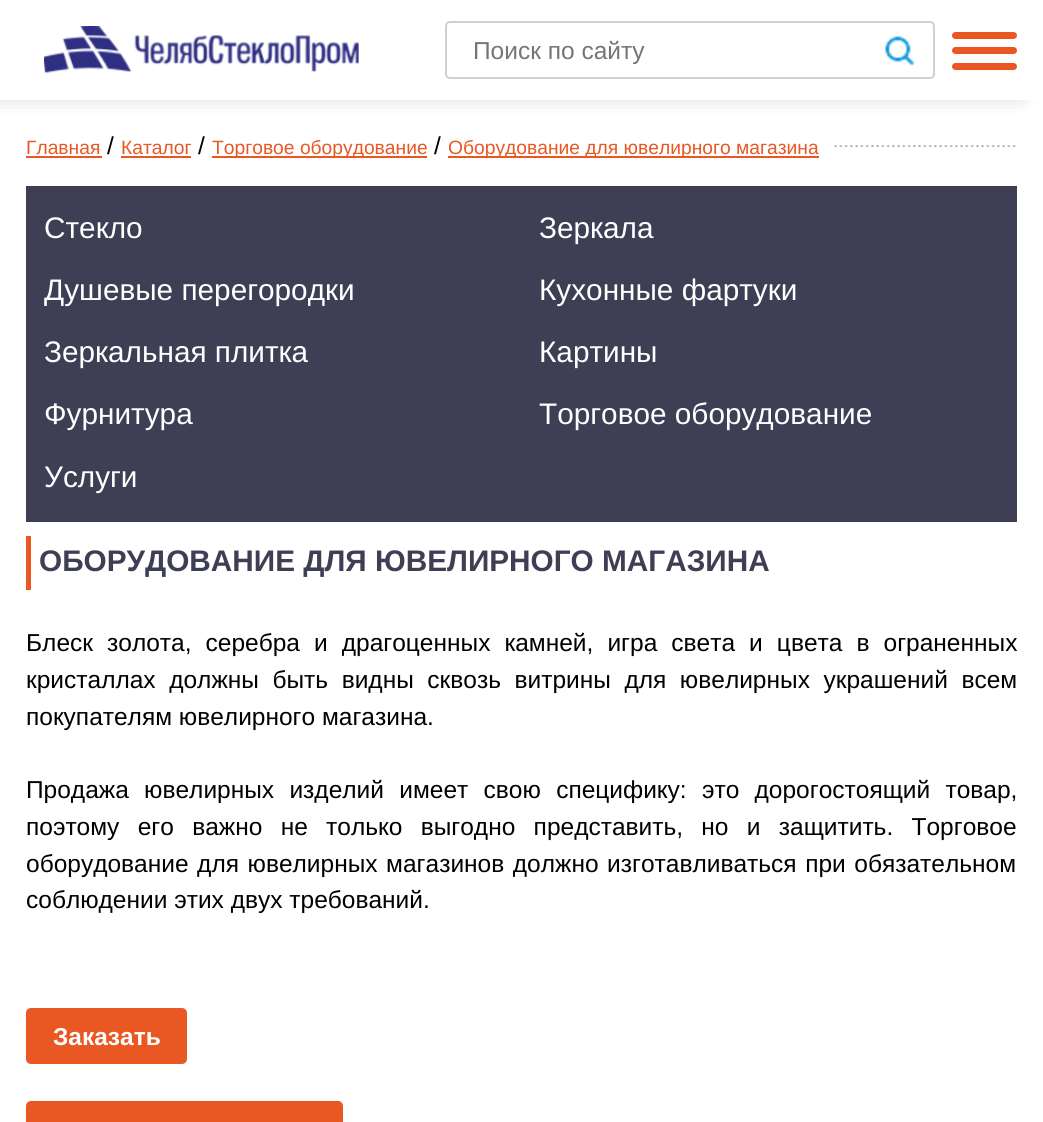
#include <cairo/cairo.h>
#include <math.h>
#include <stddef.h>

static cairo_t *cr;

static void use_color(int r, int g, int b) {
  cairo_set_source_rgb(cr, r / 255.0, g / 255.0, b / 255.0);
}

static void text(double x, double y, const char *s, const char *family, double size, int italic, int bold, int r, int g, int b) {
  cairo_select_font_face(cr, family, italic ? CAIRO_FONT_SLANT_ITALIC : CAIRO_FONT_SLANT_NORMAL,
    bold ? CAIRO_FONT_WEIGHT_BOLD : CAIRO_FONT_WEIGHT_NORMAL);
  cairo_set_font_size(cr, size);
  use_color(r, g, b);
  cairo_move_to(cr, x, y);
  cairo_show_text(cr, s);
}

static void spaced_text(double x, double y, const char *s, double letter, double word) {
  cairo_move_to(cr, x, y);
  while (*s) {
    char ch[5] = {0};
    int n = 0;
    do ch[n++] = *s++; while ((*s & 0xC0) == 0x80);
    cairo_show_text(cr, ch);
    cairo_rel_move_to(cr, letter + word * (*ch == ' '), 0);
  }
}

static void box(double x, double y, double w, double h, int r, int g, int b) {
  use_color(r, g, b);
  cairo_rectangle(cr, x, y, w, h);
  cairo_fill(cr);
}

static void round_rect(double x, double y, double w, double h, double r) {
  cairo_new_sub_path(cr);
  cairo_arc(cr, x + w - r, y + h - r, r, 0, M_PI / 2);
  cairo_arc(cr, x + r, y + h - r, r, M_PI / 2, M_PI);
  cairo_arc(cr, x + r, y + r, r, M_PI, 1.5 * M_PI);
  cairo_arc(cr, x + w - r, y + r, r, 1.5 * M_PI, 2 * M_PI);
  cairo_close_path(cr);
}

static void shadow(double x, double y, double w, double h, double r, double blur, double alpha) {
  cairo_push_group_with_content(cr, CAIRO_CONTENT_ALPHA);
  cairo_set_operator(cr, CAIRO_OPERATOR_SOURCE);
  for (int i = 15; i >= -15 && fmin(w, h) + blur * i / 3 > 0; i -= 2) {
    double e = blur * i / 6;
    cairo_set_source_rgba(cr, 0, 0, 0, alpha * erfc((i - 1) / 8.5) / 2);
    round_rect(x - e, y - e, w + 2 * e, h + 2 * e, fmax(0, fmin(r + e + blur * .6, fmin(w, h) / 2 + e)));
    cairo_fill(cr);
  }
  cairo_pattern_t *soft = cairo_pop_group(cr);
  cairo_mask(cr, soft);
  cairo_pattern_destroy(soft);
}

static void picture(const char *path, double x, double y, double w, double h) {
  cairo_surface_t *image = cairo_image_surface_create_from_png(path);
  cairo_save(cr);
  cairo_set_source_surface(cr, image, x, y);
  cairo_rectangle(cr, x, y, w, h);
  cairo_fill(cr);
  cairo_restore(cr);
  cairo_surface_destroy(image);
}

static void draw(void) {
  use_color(255, 255, 255);
  cairo_paint(cr);
  use_color(0, 0, 0);
  shadow(-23, -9, 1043, 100, 0, 12, 0.3);
  box(0, 0, 1042, 100, 255, 255, 255);
  picture("img_01.png", 44, 26, 315, 48);
  round_rect(446, 22, 488, 56, 4);
  use_color(208, 208, 208);
  cairo_stroke(cr);
  picture("img_02.png", 884, 36, 30, 30);
  use_color(233, 87, 35);
  round_rect(952, 47, 65, 7, 3.5);
  cairo_fill(cr);
  round_rect(952, 32, 65, 7, 3.5);
  cairo_fill(cr);
  round_rect(952, 63, 65, 7, 3.5);
  cairo_fill(cr);
  picture("img_03.png", 834, 145, 182, 2);
  box(26, 156, 76, 2, 233, 87, 35);
  box(121, 156, 70, 2, 233, 87, 35);
  box(212, 156, 215, 2, 233, 87, 35);
  box(448, 156, 371, 2, 233, 87, 35);
  box(26, 186, 991, 336, 62, 63, 84);
  box(26, 536, 5, 54, 233, 87, 35);
  round_rect(26, 1008, 161, 56, 5);
  cairo_fill(cr);
  round_rect(26, 1101, 317, 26, 5);
  cairo_fill(cr);
  text(473, 59, "Поиск по сайту", "Liberation Sans", 24.5, 0, 0, 117, 117, 117);
  text(26, 154, "Главная", "Liberation Sans", 19.25, 0, 0, 233, 87, 35);
  text(107, 154, "/", "Liberation Sans", 24.5, 0, 0, 0, 0, 0);
  text(121, 154, "Каталог", "Liberation Sans", 19.25, 0, 0, 233, 87, 35);
  text(198, 154, "/", "Liberation Sans", 24.5, 0, 0, 0, 0, 0);
  text(212, 154, "Торговое оборудование", "Liberation Sans", 19.25, 0, 0, 233, 87, 35);
  text(434, 154, "/", "Liberation Sans", 24.5, 0, 0, 0, 0, 0);
  text(448, 154, "Оборудование для ювелирного магазина", "Liberation Sans", 19.25, 0, 0, 233, 87, 35);
  text(44, 238, "Стекло", "Liberation Sans", 29.75, 0, 0, 255, 255, 255);
  text(539, 238, "Зеркала", "Liberation Sans", 29.75, 0, 0, 255, 255, 255);
  text(44, 300, "Душевые перегородки", "Liberation Sans", 29.75, 0, 0, 255, 255, 255);
  text(539, 300, "Кухонные фартуки", "Liberation Sans", 29.75, 0, 0, 255, 255, 255);
  text(44, 362, "Зеркальная плитка", "Liberation Sans", 29.75, 0, 0, 255, 255, 255);
  text(539, 362, "Картины", "Liberation Sans", 29.75, 0, 0, 255, 255, 255);
  text(44, 424, "Фурнитура", "Liberation Sans", 29.75, 0, 0, 255, 255, 255);
  text(539, 424, "Торговое оборудование", "Liberation Sans", 29.75, 0, 0, 255, 255, 255);
  text(44, 487, "Услуги", "Liberation Sans", 29.75, 0, 0, 255, 255, 255);
  text(39, 571, "ОБОРУДОВАНИЕ ДЛЯ ЮВЕЛИРНОГО МАГАЗИНА", "Liberation Sans", 29.75, 0, 1, 62, 63, 84);
  cairo_select_font_face(cr, "Liberation Sans", CAIRO_FONT_SLANT_NORMAL, CAIRO_FONT_WEIGHT_NORMAL);
  cairo_set_font_size(cr, 24.5);
  use_color(0, 0, 0);
  spaced_text(26, 651, "Блеск золота, серебра и драгоценных камней, игра света и цвета в ограненных", 0, 7.25);
  spaced_text(26, 688, "кристаллах должны быть видны сквозь витрины для ювелирных украшений всем", 0, 6.75);
  text(26, 725, "покупателям ювелирного магазина.", "Liberation Sans", 24.5, 0, 0, 0, 0, 0);
  spaced_text(26, 798, "Продажа ювелирных изделий имеет свою специфику: это дорогостоящий товар,", 0, 8.5);
  spaced_text(26, 835, "поэтому его важно не только выгодно представить, но и защитить. Торговое", 0, 11.5);
  spaced_text(26, 872, "оборудование для ювелирных магазинов должно изготавливаться при обязательном", 0, 1.75);
  text(26, 908, "соблюдении этих двух требований.", "Liberation Sans", 24.5, 0, 0, 0, 0, 0);
  text(53, 1045, "Заказать", "Liberation Sans", 24.5, 0, 1, 255, 255, 255);
}

int main(void) {
  cairo_surface_t *surface = cairo_image_surface_create(CAIRO_FORMAT_RGB24, 1043, 1122);
  cr = cairo_create(surface);
  cairo_font_options_t *options = cairo_font_options_create();
  cairo_font_options_set_hint_metrics(options, CAIRO_HINT_METRICS_OFF);
  cairo_font_options_set_hint_style(options, CAIRO_HINT_STYLE_NONE);
  cairo_set_font_options(cr, options);
  cairo_set_miter_limit(cr, 4);
  draw();
  cairo_surface_write_to_png(surface, "out.png");
  cairo_font_options_destroy(options);
  cairo_destroy(cr);
  cairo_surface_destroy(surface);
  return 0;
}
